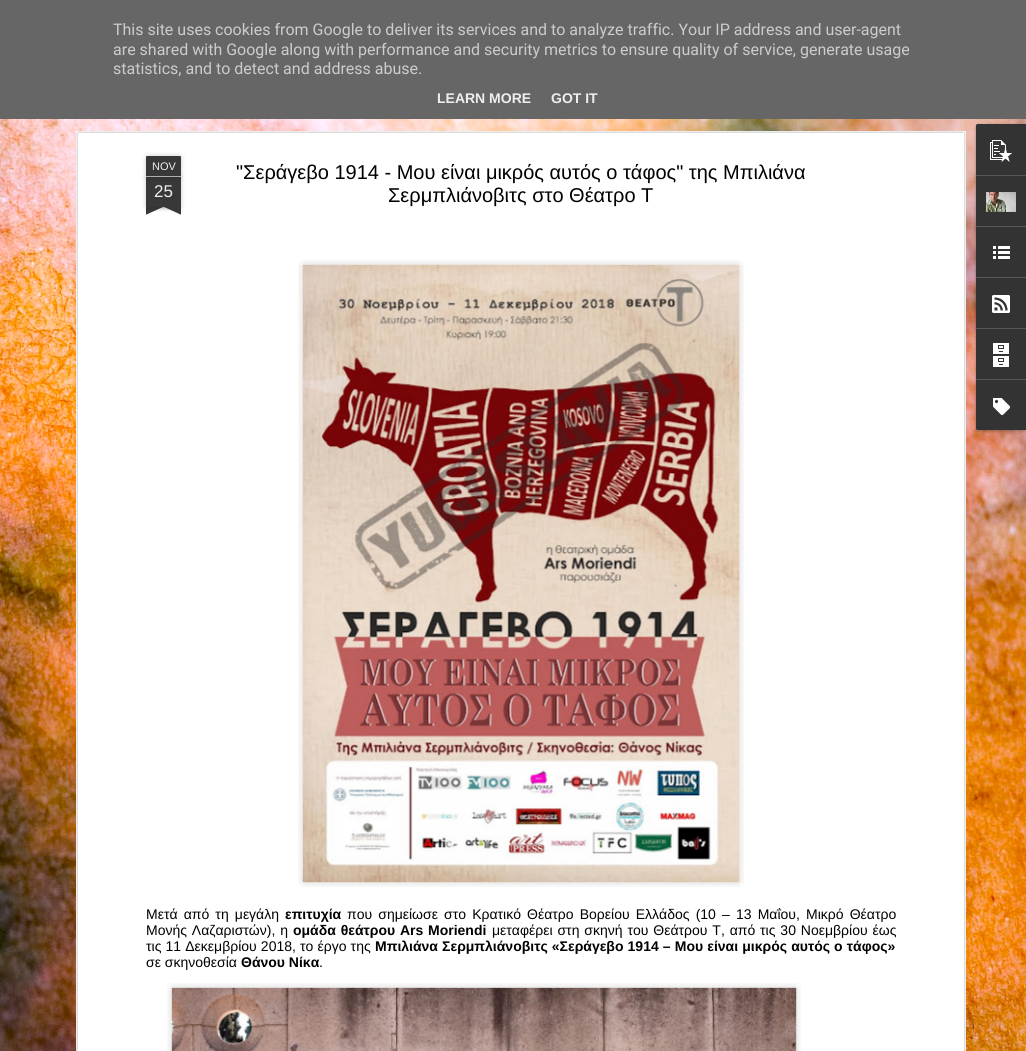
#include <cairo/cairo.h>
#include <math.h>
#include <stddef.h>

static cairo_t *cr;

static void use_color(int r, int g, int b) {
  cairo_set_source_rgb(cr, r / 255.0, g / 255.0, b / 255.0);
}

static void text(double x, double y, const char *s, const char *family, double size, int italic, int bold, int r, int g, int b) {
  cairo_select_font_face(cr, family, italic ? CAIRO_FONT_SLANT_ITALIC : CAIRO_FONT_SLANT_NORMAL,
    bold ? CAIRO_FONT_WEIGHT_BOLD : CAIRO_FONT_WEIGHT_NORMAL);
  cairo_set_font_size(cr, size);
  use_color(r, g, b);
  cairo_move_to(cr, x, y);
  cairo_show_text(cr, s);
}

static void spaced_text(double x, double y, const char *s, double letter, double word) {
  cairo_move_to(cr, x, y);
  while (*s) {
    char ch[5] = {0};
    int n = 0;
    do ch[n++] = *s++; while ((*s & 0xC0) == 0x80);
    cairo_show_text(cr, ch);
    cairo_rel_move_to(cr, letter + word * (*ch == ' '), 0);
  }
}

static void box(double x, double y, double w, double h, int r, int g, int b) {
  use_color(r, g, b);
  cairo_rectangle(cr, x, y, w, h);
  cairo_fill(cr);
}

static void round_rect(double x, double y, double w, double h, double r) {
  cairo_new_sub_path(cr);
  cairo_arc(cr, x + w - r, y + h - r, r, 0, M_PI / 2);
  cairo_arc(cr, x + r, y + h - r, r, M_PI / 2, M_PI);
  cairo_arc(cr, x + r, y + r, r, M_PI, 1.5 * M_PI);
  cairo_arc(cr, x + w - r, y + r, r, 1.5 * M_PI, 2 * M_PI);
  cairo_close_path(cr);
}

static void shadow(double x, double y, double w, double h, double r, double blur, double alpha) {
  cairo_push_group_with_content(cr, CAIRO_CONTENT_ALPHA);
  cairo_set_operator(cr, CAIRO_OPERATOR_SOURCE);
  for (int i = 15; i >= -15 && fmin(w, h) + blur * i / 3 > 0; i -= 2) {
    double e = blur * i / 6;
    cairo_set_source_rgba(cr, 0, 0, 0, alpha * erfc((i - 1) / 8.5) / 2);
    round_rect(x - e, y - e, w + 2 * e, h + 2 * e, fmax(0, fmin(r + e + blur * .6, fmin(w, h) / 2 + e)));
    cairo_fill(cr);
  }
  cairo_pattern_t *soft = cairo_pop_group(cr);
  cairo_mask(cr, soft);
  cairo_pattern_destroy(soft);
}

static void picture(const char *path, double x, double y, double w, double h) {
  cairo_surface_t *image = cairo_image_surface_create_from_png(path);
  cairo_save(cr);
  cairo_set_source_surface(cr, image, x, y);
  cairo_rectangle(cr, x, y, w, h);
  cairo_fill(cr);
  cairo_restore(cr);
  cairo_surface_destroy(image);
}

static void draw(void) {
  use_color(255, 255, 255);
  cairo_paint(cr);
  box(0, 0, 1026, 119, 102, 102, 102);
  picture("img_01.png", 0, 119, 1026, 932);
  box(76, 131, 890, 920, 255, 255, 255);
  picture("img_02.png", 76, 131, 890, 920);
  use_color(0, 0, 0);
  shadow(146, 177, 35, 30, 0, 2.5, 0.2);
  box(146, 177, 35, 30, 56, 56, 56);
  use_color(0, 0, 0);
  shadow(146, 156, 35, 21, 1, 2.5, 0.2);
  use_color(56, 56, 56);
  cairo_new_path(cr);
  cairo_move_to(cr, 147, 156);
  cairo_line_to(cr, 180, 156);
  cairo_curve_to(cr, 180.5, 156, 181, 156.5, 181, 157);
  cairo_line_to(cr, 181, 177);
  cairo_line_to(cr, 146, 177);
  cairo_line_to(cr, 146, 157);
  cairo_curve_to(cr, 146, 156.5, 146.5, 156, 147, 156);
  cairo_close_path(cr);
  cairo_fill(cr);
  box(146, 176, 35, 1, 175, 175, 175);
  cairo_save(cr);
  cairo_rectangle(cr, 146, 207, 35, 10);
  cairo_clip(cr);
  use_color(0, 0, 0);
  shadow(137, 197, 50, 10, 0, 2.5, 0.2);
  cairo_restore(cr);
  cairo_save(cr);
  cairo_rectangle(cr, 146, 207, 35, 10);
  cairo_clip(cr);
  use_color(56, 56, 56);
  cairo_new_path(cr);
  cairo_move_to(cr, 137, 208);
  cairo_line_to(cr, 183, 187);
  cairo_line_to(cr, 187, 196);
  cairo_line_to(cr, 141, 217);
  cairo_close_path(cr);
  cairo_fill(cr);
  cairo_restore(cr);
  cairo_save(cr);
  cairo_rectangle(cr, 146, 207, 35, 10);
  cairo_clip(cr);
  use_color(0, 0, 0);
  shadow(140, 197, 50, 10, 0, 2.5, 0.2);
  cairo_restore(cr);
  cairo_save(cr);
  cairo_rectangle(cr, 146, 207, 35, 10);
  cairo_clip(cr);
  use_color(56, 56, 56);
  cairo_new_path(cr);
  cairo_move_to(cr, 144, 187);
  cairo_line_to(cr, 190, 208);
  cairo_line_to(cr, 186, 217);
  cairo_line_to(cr, 140, 196);
  cairo_close_path(cr);
  cairo_fill(cr);
  cairo_restore(cr);
  picture("img_03.png", 298, 260, 446, 627);
  picture("img_04.png", 302, 264, 438, 619);
  picture("img_05.png", 167, 983, 634, 68);
  picture("img_06.png", 171, 987, 626, 64);
  use_color(0, 0, 0);
  shadow(976, 125, 50, 306, 2, 1.5, 0.3);
  use_color(51, 51, 51);
  cairo_new_path(cr);
  cairo_move_to(cr, 978, 124);
  cairo_line_to(cr, 1026, 124);
  cairo_line_to(cr, 1026, 430);
  cairo_line_to(cr, 978, 430);
  cairo_curve_to(cr, 977, 430, 976, 429, 976, 428);
  cairo_line_to(cr, 976, 126);
  cairo_curve_to(cr, 976, 125, 977, 124, 978, 124);
  cairo_close_path(cr);
  cairo_fill(cr);
  cairo_new_path(cr);
  cairo_move_to(cr, 978, 124);
  cairo_line_to(cr, 1026, 124);
  cairo_line_to(cr, 1026, 175);
  cairo_line_to(cr, 976, 175);
  cairo_line_to(cr, 976, 126);
  cairo_curve_to(cr, 976, 125, 977, 124, 978, 124);
  cairo_close_path(cr);
  cairo_fill(cr);
  picture("img_07.png", 990, 140, 22, 22);
  box(976, 175, 50, 1, 88, 88, 88);
  picture("img_08.png", 986, 192, 30, 20);
  box(976, 226, 50, 1, 88, 88, 88);
  picture("img_09.png", 993, 246, 17, 13);
  box(976, 277, 50, 1, 88, 88, 88);
  picture("img_10.png", 992, 295, 18, 18);
  box(976, 328, 50, 1, 88, 88, 88);
  picture("img_11.png", 993, 343, 16, 24);
  use_color(51, 51, 51);
  cairo_new_path(cr);
  cairo_move_to(cr, 976, 379);
  cairo_line_to(cr, 1026, 379);
  cairo_line_to(cr, 1026, 430);
  cairo_line_to(cr, 978, 430);
  cairo_curve_to(cr, 977, 430, 976, 429, 976, 428);
  cairo_close_path(cr);
  cairo_fill(cr);
  box(976, 379, 50, 1, 88, 88, 88);
  picture("img_12.png", 993, 398, 17, 17);
  text(113, 35, "This site uses cookies from Google to deliver its services and to analyze traffic. Your IP address and user-agent", "Roboto", 16, 0, 0, 204, 204, 204);
  text(113, 55, "are shared with Google along with performance and security metrics to ensure quality of service, generate usage", "Roboto", 16, 0, 0, 204, 204, 204);
  text(113, 74, "statistics, and to detect and address abuse.", "Roboto", 16, 0, 0, 204, 204, 204);
  text(437, 103, "LEARN MORE", "Liberation Sans", 14, 0, 1, 238, 238, 238);
  text(551, 103, "GOT IT", "Liberation Sans", 14, 0, 1, 238, 238, 238);
  text(152, 170, "NOV", "Liberation Sans", 11, 0, 0, 238, 238, 238);
  text(154, 197, "25", "Liberation Sans", 17, 0, 0, 238, 238, 238);
  text(236, 179, "\"Σεράγεβο 1914 - Μου είναι μικρός αυτός ο τάφος\" της Μπιλιάνα", "Liberation Sans", 20, 0, 0, 0, 0, 0);
  text(388, 202, "Σερμπλιάνοβιτς στο Θέατρο Τ", "Liberation Sans", 20, 0, 0, 0, 0, 0);
  cairo_set_font_size(cr, 14);
  spaced_text(146, 919, "Μετά από τη μεγάλη", 0, 2.25);
  text(285, 919, "επιτυχία", "Liberation Sans", 14, 0, 1, 0, 0, 0);
  cairo_select_font_face(cr, "Liberation Sans", CAIRO_FONT_SLANT_NORMAL, CAIRO_FONT_WEIGHT_NORMAL);
  spaced_text(347, 919, "που σημείωσε στο Κρατικό Θέατρο Βορείου Ελλάδος (10 – 13 Μαΐου, Μικρό Θέατρο", 0, 2.25);
  spaced_text(146, 935, "Μονής Λαζαριστών), η", 0, 1);
  cairo_select_font_face(cr, "Liberation Sans", CAIRO_FONT_SLANT_NORMAL, CAIRO_FONT_WEIGHT_BOLD);
  spaced_text(293, 935, "ομάδα θεάτρου", 0, 1);
  text(400, 935, "Ars", "Liberation Sans", 14, 0, 1, 0, 0, 0);
  text(428, 935, "Moriendi", "Liberation Sans", 14, 0, 1, 0, 0, 0);
  cairo_select_font_face(cr, "Liberation Sans", CAIRO_FONT_SLANT_NORMAL, CAIRO_FONT_WEIGHT_NORMAL);
  spaced_text(492, 935, "μεταφέρει στη σκηνή του Θεάτρου Τ, από τις 30 Νοεμβρίου έως", 0, 1);
  spaced_text(146, 951, "τις 11 Δεκεμβρίου 2018, το έργο της", 0, 0.25);
  cairo_select_font_face(cr, "Liberation Sans", CAIRO_FONT_SLANT_NORMAL, CAIRO_FONT_WEIGHT_BOLD);
  spaced_text(375, 951, "Μπιλιάνα Σερμπλιάνοβιτς «Σεράγεβο 1914 – Μου είναι μικρός αυτός ο τάφος»", 0, 0.25);
  text(146, 967, "σε σκηνοθεσία", "Liberation Sans", 14, 0, 0, 0, 0, 0);
  text(241, 967, "Θάνου Νίκα", "Liberation Sans", 14, 0, 1, 0, 0, 0);
  text(319, 967, ".", "Liberation Sans", 14, 0, 0, 0, 0, 0);
}

int main(void) {
  cairo_surface_t *surface = cairo_image_surface_create(CAIRO_FORMAT_RGB24, 1026, 1051);
  cr = cairo_create(surface);
  cairo_font_options_t *options = cairo_font_options_create();
  cairo_font_options_set_hint_metrics(options, CAIRO_HINT_METRICS_OFF);
  cairo_font_options_set_hint_style(options, CAIRO_HINT_STYLE_NONE);
  cairo_set_font_options(cr, options);
  cairo_set_miter_limit(cr, 4);
  draw();
  cairo_surface_write_to_png(surface, "out.png");
  cairo_font_options_destroy(options);
  cairo_destroy(cr);
  cairo_surface_destroy(surface);
  return 0;
}
